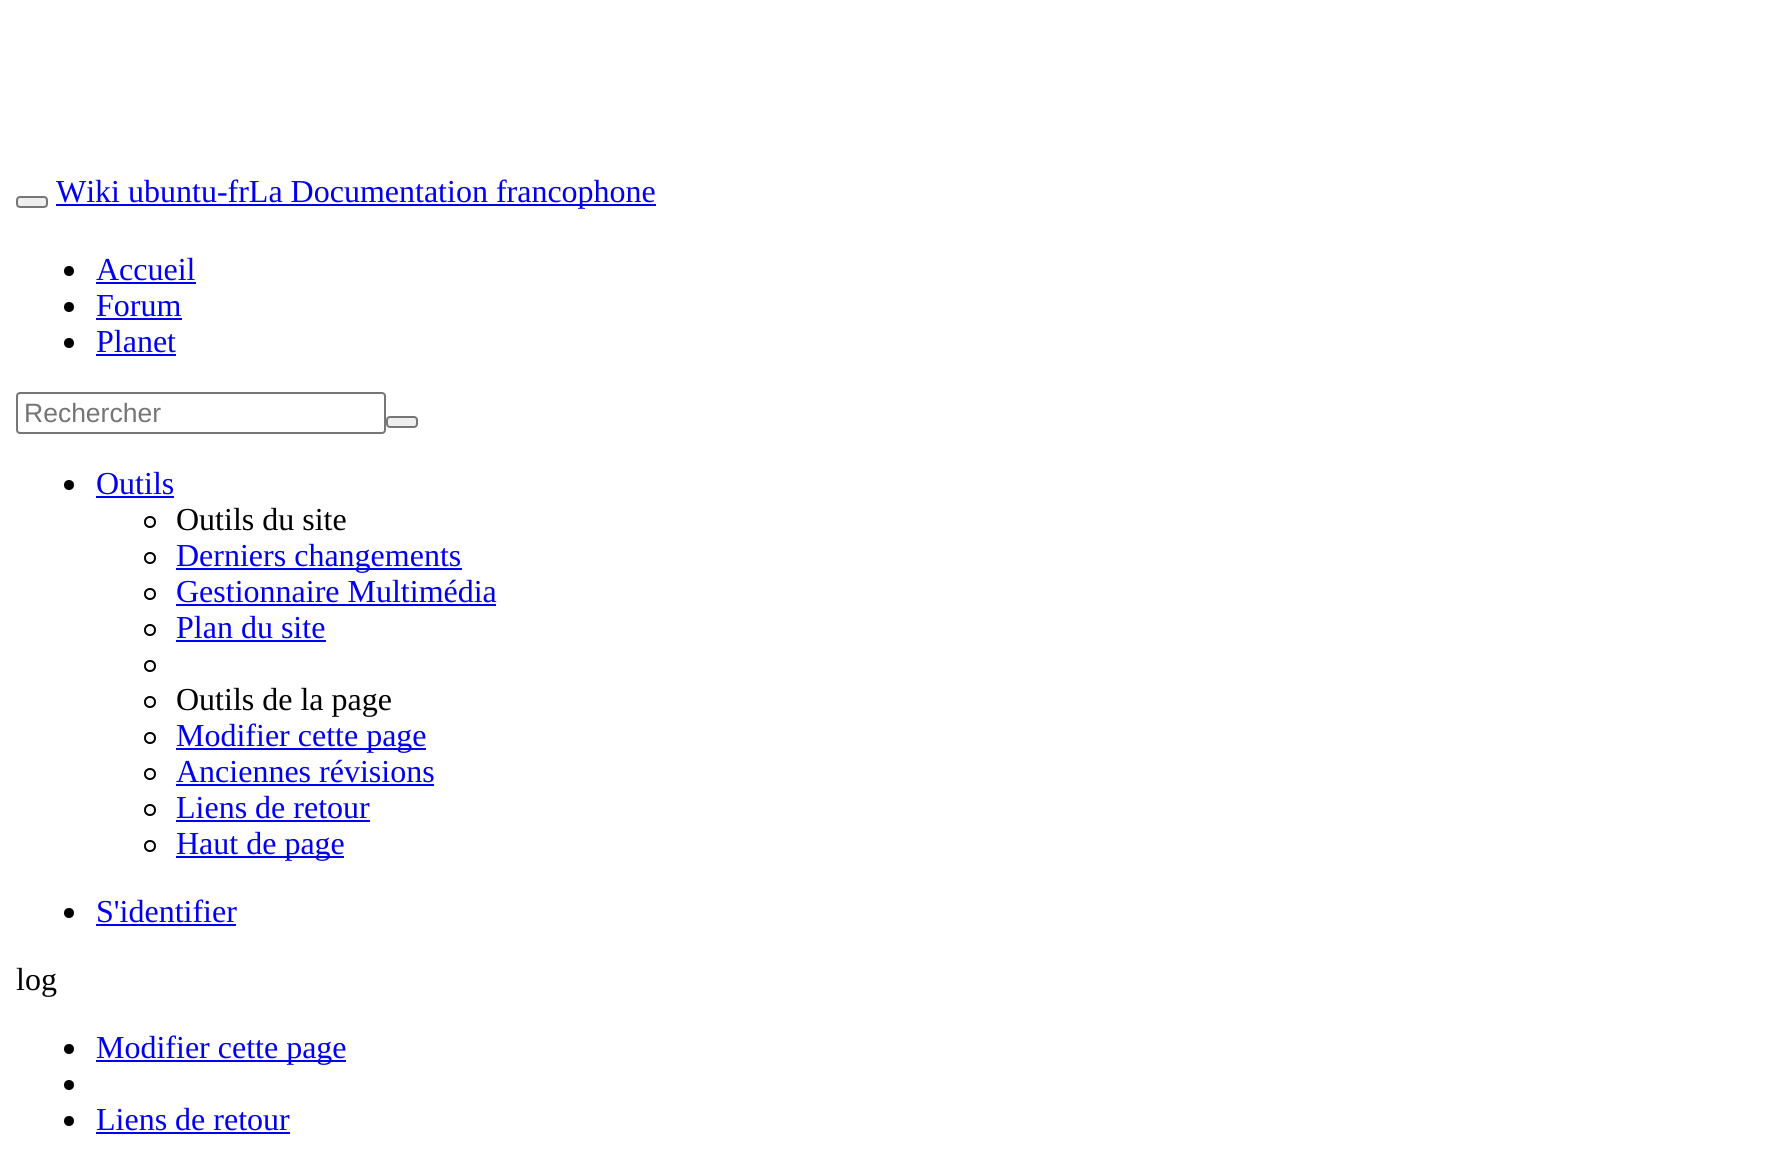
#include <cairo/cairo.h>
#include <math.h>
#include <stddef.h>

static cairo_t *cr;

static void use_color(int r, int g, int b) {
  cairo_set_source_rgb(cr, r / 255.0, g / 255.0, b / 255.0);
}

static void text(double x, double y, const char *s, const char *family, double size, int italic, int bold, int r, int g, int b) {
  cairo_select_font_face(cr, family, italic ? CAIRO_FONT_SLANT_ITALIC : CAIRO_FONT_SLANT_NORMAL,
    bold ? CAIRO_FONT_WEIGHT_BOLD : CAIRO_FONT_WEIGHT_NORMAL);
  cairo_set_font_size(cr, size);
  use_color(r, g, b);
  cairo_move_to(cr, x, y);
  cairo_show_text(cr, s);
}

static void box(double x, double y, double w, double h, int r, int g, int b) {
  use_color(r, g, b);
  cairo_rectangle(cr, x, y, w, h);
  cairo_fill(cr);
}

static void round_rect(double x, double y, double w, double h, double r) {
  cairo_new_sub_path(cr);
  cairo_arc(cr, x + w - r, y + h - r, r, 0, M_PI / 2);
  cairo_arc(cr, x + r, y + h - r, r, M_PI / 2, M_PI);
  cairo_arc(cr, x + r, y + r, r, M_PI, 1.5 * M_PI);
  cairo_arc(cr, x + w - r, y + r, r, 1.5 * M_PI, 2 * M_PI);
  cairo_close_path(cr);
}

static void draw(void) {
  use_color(255, 255, 255);
  cairo_paint(cr);
  use_color(239, 239, 239);
  round_rect(17, 197, 30, 10, 3);
  cairo_fill_preserve(cr);
  use_color(118, 118, 118);
  cairo_stroke(cr);
  box(56, 204, 600, 2, 0, 0, 238);
  use_color(0, 0, 0);
  cairo_arc(cr, 69, 271, 5, 0, 2 * M_PI);
  cairo_fill(cr);
  box(96, 282, 100, 2, 0, 0, 238);
  use_color(0, 0, 0);
  cairo_arc(cr, 69, 307, 5, 0, 2 * M_PI);
  cairo_fill(cr);
  box(96, 318, 86, 2, 0, 0, 238);
  use_color(0, 0, 0);
  cairo_arc(cr, 69, 343, 5, 0, 2 * M_PI);
  cairo_fill(cr);
  box(96, 354, 80, 2, 0, 0, 238);
  round_rect(17, 393, 368, 40, 3);
  use_color(118, 118, 118);
  cairo_stroke(cr);
  use_color(239, 239, 239);
  round_rect(387, 417, 30, 10, 3);
  cairo_fill_preserve(cr);
  use_color(118, 118, 118);
  cairo_stroke(cr);
  use_color(0, 0, 0);
  cairo_arc(cr, 69, 485, 5, 0, 2 * M_PI);
  cairo_fill(cr);
  box(96, 496, 78, 2, 0, 0, 238);
  cairo_arc(cr, 150, 522, 5, 0, 2 * M_PI);
  use_color(0, 0, 0);
  cairo_stroke(cr);
  cairo_arc(cr, 150, 558, 5, 0, 2 * M_PI);
  cairo_stroke(cr);
  box(176, 568, 286, 2, 0, 0, 238);
  cairo_arc(cr, 150, 594, 5, 0, 2 * M_PI);
  use_color(0, 0, 0);
  cairo_stroke(cr);
  box(176, 604, 320, 2, 0, 0, 238);
  cairo_arc(cr, 150, 630, 5, 0, 2 * M_PI);
  use_color(0, 0, 0);
  cairo_stroke(cr);
  box(176, 640, 150, 2, 0, 0, 238);
  cairo_arc(cr, 150, 666, 5, 0, 2 * M_PI);
  use_color(0, 0, 0);
  cairo_stroke(cr);
  cairo_arc(cr, 150, 702, 5, 0, 2 * M_PI);
  cairo_stroke(cr);
  cairo_arc(cr, 150, 738, 5, 0, 2 * M_PI);
  cairo_stroke(cr);
  box(176, 748, 250, 2, 0, 0, 238);
  cairo_arc(cr, 150, 774, 5, 0, 2 * M_PI);
  use_color(0, 0, 0);
  cairo_stroke(cr);
  box(176, 784, 258, 2, 0, 0, 238);
  cairo_arc(cr, 150, 810, 5, 0, 2 * M_PI);
  use_color(0, 0, 0);
  cairo_stroke(cr);
  box(176, 820, 194, 2, 0, 0, 238);
  cairo_arc(cr, 150, 846, 5, 0, 2 * M_PI);
  use_color(0, 0, 0);
  cairo_stroke(cr);
  box(176, 856, 168, 2, 0, 0, 238);
  use_color(0, 0, 0);
  cairo_arc(cr, 69, 913, 5, 0, 2 * M_PI);
  cairo_fill(cr);
  box(96, 924, 140, 2, 0, 0, 238);
  use_color(0, 0, 0);
  cairo_arc(cr, 69, 1049, 5, 0, 2 * M_PI);
  cairo_fill(cr);
  box(96, 1060, 250, 2, 0, 0, 238);
  use_color(0, 0, 0);
  cairo_arc(cr, 69, 1085, 5, 0, 2 * M_PI);
  cairo_fill(cr);
  cairo_arc(cr, 69, 1121, 5, 0, 2 * M_PI);
  cairo_fill(cr);
  box(96, 1132, 194, 2, 0, 0, 238);
  text(56, 202, "Wiki ubuntu-frLa Documentation francophone", "Liberation Serif", 32, 0, 0, 0, 0, 238);
  text(96, 280, "Accueil", "Liberation Serif", 32, 0, 0, 0, 0, 238);
  text(96, 316, "Forum", "Liberation Serif", 32, 0, 0, 0, 0, 238);
  text(96, 352, "Planet", "Liberation Serif", 32, 0, 0, 0, 0, 238);
  text(24, 422, "Rechercher", "Liberation Sans", 26.5, 0, 0, 117, 117, 117);
  text(96, 494, "Outils", "Liberation Serif", 32, 0, 0, 0, 0, 238);
  text(176, 530, "Outils du site", "Liberation Serif", 32, 0, 0, 0, 0, 0);
  text(176, 566, "Derniers changements", "Liberation Serif", 32, 0, 0, 0, 0, 238);
  text(176, 602, "Gestionnaire Multimédia", "Liberation Serif", 32, 0, 0, 0, 0, 238);
  text(176, 638, "Plan du site", "Liberation Serif", 32, 0, 0, 0, 0, 238);
  text(176, 710, "Outils de la page", "Liberation Serif", 32, 0, 0, 0, 0, 0);
  text(176, 746, "Modifier cette page", "Liberation Serif", 32, 0, 0, 0, 0, 238);
  text(176, 782, "Anciennes révisions", "Liberation Serif", 32, 0, 0, 0, 0, 238);
  text(176, 818, "Liens de retour", "Liberation Serif", 32, 0, 0, 0, 0, 238);
  text(176, 854, "Haut de page", "Liberation Serif", 32, 0, 0, 0, 0, 238);
  text(96, 922, "S'identifier", "Liberation Serif", 32, 0, 0, 0, 0, 238);
  text(16, 990, "log", "Liberation Serif", 32, 0, 0, 0, 0, 0);
  text(96, 1058, "Modifier cette page", "Liberation Serif", 32, 0, 0, 0, 0, 238);
  text(96, 1130, "Liens de retour", "Liberation Serif", 32, 0, 0, 0, 0, 238);
}

int main(void) {
  cairo_surface_t *surface = cairo_image_surface_create(CAIRO_FORMAT_RGB24, 1789, 1164);
  cr = cairo_create(surface);
  cairo_font_options_t *options = cairo_font_options_create();
  cairo_font_options_set_hint_metrics(options, CAIRO_HINT_METRICS_OFF);
  cairo_font_options_set_hint_style(options, CAIRO_HINT_STYLE_NONE);
  cairo_set_font_options(cr, options);
  cairo_set_miter_limit(cr, 4);
  draw();
  cairo_surface_write_to_png(surface, "out.png");
  cairo_font_options_destroy(options);
  cairo_destroy(cr);
  cairo_surface_destroy(surface);
  return 0;
}
